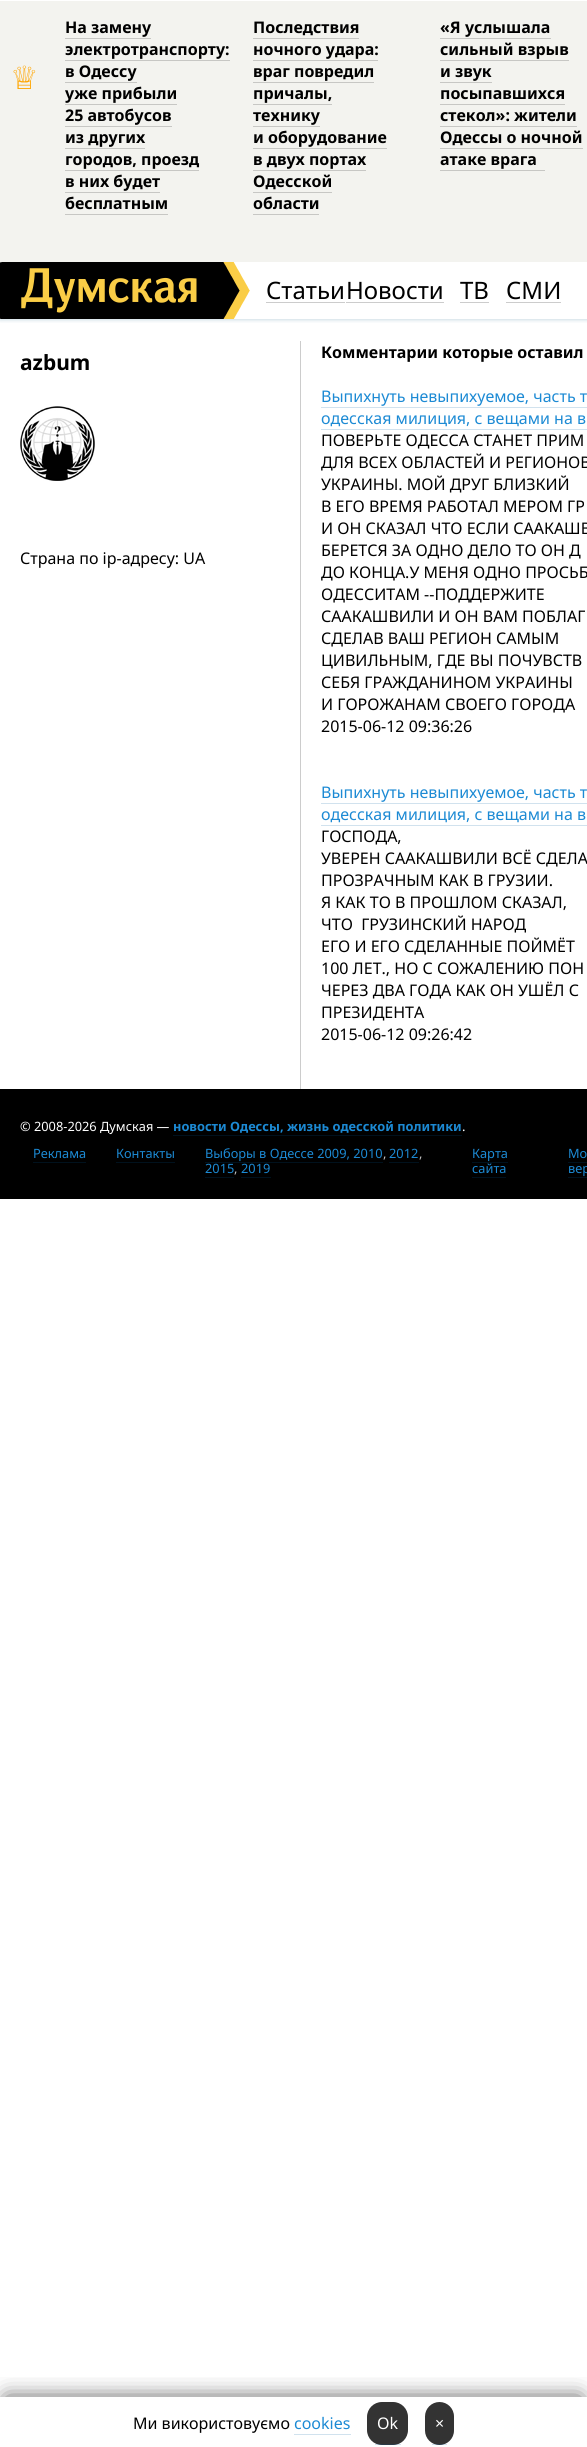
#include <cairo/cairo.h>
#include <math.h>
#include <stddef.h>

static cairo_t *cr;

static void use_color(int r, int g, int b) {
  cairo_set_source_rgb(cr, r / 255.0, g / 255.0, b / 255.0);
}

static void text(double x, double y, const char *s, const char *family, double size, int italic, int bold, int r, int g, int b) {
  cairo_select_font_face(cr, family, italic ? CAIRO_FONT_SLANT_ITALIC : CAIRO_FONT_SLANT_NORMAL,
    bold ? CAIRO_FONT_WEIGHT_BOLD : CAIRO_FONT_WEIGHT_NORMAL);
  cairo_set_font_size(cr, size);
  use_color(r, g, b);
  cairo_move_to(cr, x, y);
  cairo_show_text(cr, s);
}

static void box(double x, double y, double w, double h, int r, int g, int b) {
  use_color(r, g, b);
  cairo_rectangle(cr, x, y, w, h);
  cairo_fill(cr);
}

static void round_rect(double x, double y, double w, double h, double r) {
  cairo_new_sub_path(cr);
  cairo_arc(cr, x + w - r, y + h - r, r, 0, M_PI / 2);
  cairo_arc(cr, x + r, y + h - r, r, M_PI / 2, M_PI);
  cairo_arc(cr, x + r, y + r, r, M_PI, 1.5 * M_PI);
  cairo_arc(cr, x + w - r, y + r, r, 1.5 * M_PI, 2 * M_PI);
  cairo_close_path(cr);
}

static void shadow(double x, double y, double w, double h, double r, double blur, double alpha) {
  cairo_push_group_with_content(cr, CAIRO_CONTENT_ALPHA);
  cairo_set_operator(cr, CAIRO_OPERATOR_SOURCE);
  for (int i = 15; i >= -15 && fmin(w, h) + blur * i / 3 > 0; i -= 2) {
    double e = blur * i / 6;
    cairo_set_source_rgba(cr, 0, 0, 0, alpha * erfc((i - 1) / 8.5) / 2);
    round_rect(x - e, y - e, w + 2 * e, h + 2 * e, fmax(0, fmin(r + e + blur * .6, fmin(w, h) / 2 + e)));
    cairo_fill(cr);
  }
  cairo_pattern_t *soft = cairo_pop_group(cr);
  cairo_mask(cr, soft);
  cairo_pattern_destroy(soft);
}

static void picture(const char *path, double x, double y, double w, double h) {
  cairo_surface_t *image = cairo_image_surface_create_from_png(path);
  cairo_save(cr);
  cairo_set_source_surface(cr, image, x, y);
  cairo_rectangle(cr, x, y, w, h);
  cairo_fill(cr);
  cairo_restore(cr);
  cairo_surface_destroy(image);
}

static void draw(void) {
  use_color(255, 255, 255);
  cairo_paint(cr);
  cairo_save(cr);
  cairo_rectangle(cr, 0, 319, 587, 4);
  cairo_clip(cr);
  use_color(0, 79, 122);
  shadow(0, 262, 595, 57, 0, 2.5, 0.3);
  cairo_restore(cr);
  box(0, 1, 587, 261, 243, 243, 239);
  box(65, 38, 86, 1, 199, 199, 196);
  box(65, 60, 165, 1, 199, 199, 196);
  box(65, 82, 72, 1, 199, 199, 196);
  box(65, 104, 112, 1, 199, 199, 196);
  box(65, 126, 107, 1, 199, 199, 196);
  box(65, 148, 80, 1, 199, 199, 196);
  box(65, 170, 134, 1, 199, 199, 196);
  box(65, 192, 95, 1, 199, 199, 196);
  box(65, 214, 103, 1, 199, 199, 196);
  box(253, 38, 106, 1, 199, 199, 196);
  box(253, 60, 125, 1, 199, 199, 196);
  box(253, 82, 121, 1, 199, 199, 196);
  box(253, 104, 79, 1, 199, 199, 196);
  box(253, 126, 67, 1, 199, 199, 196);
  box(253, 148, 134, 1, 199, 199, 196);
  box(253, 170, 113, 1, 199, 199, 196);
  box(253, 192, 79, 1, 199, 199, 196);
  box(253, 214, 66, 1, 199, 199, 196);
  box(440, 38, 111, 1, 199, 199, 196);
  box(440, 60, 129, 1, 199, 199, 196);
  box(440, 82, 52, 1, 199, 199, 196);
  box(440, 104, 125, 1, 199, 199, 196);
  box(440, 126, 137, 1, 199, 199, 196);
  box(440, 148, 143, 1, 199, 199, 196);
  box(440, 170, 105, 1, 199, 199, 196);
  picture("img_01.png", 0, 262, 250, 57);
  box(266, 302, 79, 1, 204, 204, 204);
  box(346, 302, 98, 1, 204, 204, 204);
  box(460, 302, 29, 1, 204, 204, 204);
  box(506, 302, 55, 1, 204, 204, 204);
  box(300, 341, 1, 749, 204, 204, 204);
  picture("img_02.png", 20, 406, 75, 75);
  box(321, 407, 266, 1, 209, 226, 238);
  box(321, 429, 266, 1, 209, 226, 238);
  box(321, 803, 266, 1, 209, 226, 238);
  box(321, 825, 266, 1, 209, 226, 238);
  box(0, 1089, 587, 110, 0, 0, 0);
  box(173, 1135, 289, 1, 0, 17, 29);
  box(33, 1162, 53, 1, 0, 17, 29);
  box(116, 1162, 59, 1, 0, 17, 29);
  box(205, 1162, 178, 1, 0, 17, 29);
  box(389, 1162, 30, 1, 0, 17, 29);
  box(205, 1177, 29, 1, 0, 17, 29);
  box(241, 1177, 30, 1, 0, 17, 29);
  box(472, 1162, 36, 1, 0, 17, 29);
  box(472, 1177, 34, 1, 0, 17, 29);
  box(568, 1162, 19, 1, 0, 17, 29);
  box(568, 1177, 19, 1, 0, 17, 29);
  cairo_save(cr);
  cairo_rectangle(cr, 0, 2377, 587, 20);
  cairo_clip(cr);
  use_color(0, 0, 0);
  shadow(7, 2399, 573, 36, 0, 11.5, 0.75);
  cairo_restore(cr);
  box(294, 2434, 57, 1, 209, 226, 238);
  use_color(51, 51, 51);
  round_rect(367, 2402, 41, 43, 15);
  cairo_fill(cr);
  cairo_set_source_rgba(cr, 0, 0.361, 0.639, 0.18);
  cairo_rectangle(cr, 375, 2444, 26, 1);
  cairo_fill(cr);
  use_color(51, 51, 51);
  round_rect(425, 2402, 29, 43, 14.5);
  cairo_fill(cr);
  cairo_set_source_rgba(cr, 0, 0.361, 0.639, 0.18);
  cairo_rectangle(cr, 432, 2444, 15, 1);
  cairo_fill(cr);
  text(10, 89, "♕", "DejaVu Sans", 32, 0, 0, 255, 165, 0);
  text(65, 33, "На замену", "Noto Sans", 16, 0, 1, 0, 0, 0);
  text(65, 55, "электротранспорту:", "Noto Sans", 16, 0, 1, 0, 0, 0);
  text(65, 77, "в Одессу", "Noto Sans", 16, 0, 1, 0, 0, 0);
  text(65, 99, "уже прибыли", "Noto Sans", 16, 0, 1, 0, 0, 0);
  text(65, 121, "25 автобусов", "Noto Sans", 16, 0, 1, 0, 0, 0);
  text(65, 143, "из других", "Noto Sans", 16, 0, 1, 0, 0, 0);
  text(65, 165, "городов, проезд", "Noto Sans", 16, 0, 1, 0, 0, 0);
  text(65, 187, "в них будет", "Noto Sans", 16, 0, 1, 0, 0, 0);
  text(65, 209, "бесплатным", "Noto Sans", 16, 0, 1, 0, 0, 0);
  text(253, 33, "Последствия", "Noto Sans", 16, 0, 1, 0, 0, 0);
  text(253, 55, "ночного удара:", "Noto Sans", 16, 0, 1, 0, 0, 0);
  text(253, 77, "враг повредил", "Noto Sans", 16, 0, 1, 0, 0, 0);
  text(253, 99, "причалы,", "Noto Sans", 16, 0, 1, 0, 0, 0);
  text(253, 121, "технику", "Noto Sans", 16, 0, 1, 0, 0, 0);
  text(253, 143, "и оборудование", "Noto Sans", 16, 0, 1, 0, 0, 0);
  text(253, 165, "в двух портах", "Noto Sans", 16, 0, 1, 0, 0, 0);
  text(253, 187, "Одесской", "Noto Sans", 16, 0, 1, 0, 0, 0);
  text(253, 209, "области", "Noto Sans", 16, 0, 1, 0, 0, 0);
  text(440, 33, "«Я услышала", "Noto Sans", 16, 0, 1, 0, 0, 0);
  text(440, 55, "сильный взрыв", "Noto Sans", 16, 0, 1, 0, 0, 0);
  text(440, 77, "и звук", "Noto Sans", 16, 0, 1, 0, 0, 0);
  text(440, 99, "посыпавшихся", "Noto Sans", 16, 0, 1, 0, 0, 0);
  text(440, 121, "стекол»: жители", "Noto Sans", 16, 0, 1, 0, 0, 0);
  text(440, 143, "Одессы о ночной", "Noto Sans", 16, 0, 1, 0, 0, 0);
  text(440, 165, "атаке врага", "Noto Sans", 16, 0, 1, 0, 0, 0);
  text(266, 299, "Статьи", "Noto Sans", 24, 0, 0, 0, 0, 0);
  text(346, 299, "Новости", "Noto Sans", 24, 0, 0, 0, 0, 0);
  text(460, 299, "ТВ", "Noto Sans", 24, 0, 0, 0, 0, 0);
  text(506, 299, "СМИ", "Noto Sans", 24, 0, 0, 0, 0, 0);
  text(20, 370, "azbum", "Noto Sans", 21, 0, 1, 0, 0, 0);
  text(20, 564, "Страна по ip-адресу: UA", "Noto Sans", 16, 0, 0, 0, 0, 0);
  text(321, 358, "Комментарии которые оставил", "Noto Sans", 16, 0, 1, 0, 0, 0);
  text(321, 402, "Выпихнуть невыпихуемое, часть т", "Noto Sans", 16, 0, 0, 28, 138, 212);
  text(321, 424, "одесская милиция, с вещами на в", "Noto Sans", 16, 0, 0, 28, 138, 212);
  text(321, 446, "ПОВЕРЬТЕ ОДЕССА СТАНЕТ ПРИМ", "Noto Sans", 16, 0, 0, 0, 0, 0);
  text(321, 468, "ДЛЯ ВСЕХ ОБЛАСТЕЙ И РЕГИОНОВ", "Noto Sans", 16, 0, 0, 0, 0, 0);
  text(321, 490, "УКРАИНЫ. МОЙ ДРУГ БЛИЗКИЙ", "Noto Sans", 16, 0, 0, 0, 0, 0);
  text(321, 512, "В ЕГО ВРЕМЯ РАБОТАЛ МЕРОМ ГР", "Noto Sans", 16, 0, 0, 0, 0, 0);
  text(321, 534, "И ОН СКАЗАЛ ЧТО ЕСЛИ СААКАШВ", "Noto Sans", 16, 0, 0, 0, 0, 0);
  text(321, 556, "БЕРЕТСЯ ЗА ОДНО ДЕЛО ТО ОН Д", "Noto Sans", 16, 0, 0, 0, 0, 0);
  text(321, 578, "ДО КОНЦА.У МЕНЯ ОДНО ПРОСЬБ", "Noto Sans", 16, 0, 0, 0, 0, 0);
  text(321, 600, "ОДЕССИТАМ --ПОДДЕРЖИТЕ", "Noto Sans", 16, 0, 0, 0, 0, 0);
  text(321, 622, "СААКАШВИЛИ И ОН ВАМ ПОБЛАГ", "Noto Sans", 16, 0, 0, 0, 0, 0);
  text(321, 644, "СДЕЛАВ ВАШ РЕГИОН САМЫМ", "Noto Sans", 16, 0, 0, 0, 0, 0);
  text(321, 666, "ЦИВИЛЬНЫМ, ГДЕ ВЫ ПОЧУВСТВ", "Noto Sans", 16, 0, 0, 0, 0, 0);
  text(321, 688, "СЕБЯ ГРАЖДАНИНОМ УКРАИНЫ", "Noto Sans", 16, 0, 0, 0, 0, 0);
  text(321, 710, "И ГОРОЖАНАМ СВОЕГО ГОРОДА", "Noto Sans", 16, 0, 0, 0, 0, 0);
  text(321, 732, "2015-06-12 09:36:26", "Noto Sans", 16, 0, 0, 0, 0, 0);
  text(321, 798, "Выпихнуть невыпихуемое, часть т", "Noto Sans", 16, 0, 0, 28, 138, 212);
  text(321, 820, "одесская милиция, с вещами на в", "Noto Sans", 16, 0, 0, 28, 138, 212);
  text(321, 842, "ГОСПОДА,", "Noto Sans", 16, 0, 0, 0, 0, 0);
  text(321, 864, "УВЕРЕН СААКАШВИЛИ ВСЁ СДЕЛА", "Noto Sans", 16, 0, 0, 0, 0, 0);
  text(321, 886, "ПРОЗРАЧНЫМ КАК В ГРУЗИИ.", "Noto Sans", 16, 0, 0, 0, 0, 0);
  text(321, 908, "Я КАК ТО В ПРОШЛОМ СКАЗАЛ,", "Noto Sans", 16, 0, 0, 0, 0, 0);
  text(321, 930, "ЧТО  ГРУЗИНСКИЙ НАРОД", "Noto Sans", 16, 0, 0, 0, 0, 0);
  text(321, 952, "ЕГО И ЕГО СДЕЛАННЫЕ ПОЙМЁТ", "Noto Sans", 16, 0, 0, 0, 0, 0);
  text(321, 974, "100 ЛЕТ., НО С СОЖАЛЕНИЮ ПОН", "Noto Sans", 16, 0, 0, 0, 0, 0);
  text(321, 996, "ЧЕРЕЗ ДВА ГОДА КАК ОН УШЁЛ С", "Noto Sans", 16, 0, 0, 0, 0, 0);
  text(321, 1018, "ПРЕЗИДЕНТА", "Noto Sans", 16, 0, 0, 0, 0, 0);
  text(321, 1040, "2015-06-12 09:26:42", "Noto Sans", 16, 0, 0, 0, 0, 0);
  text(20, 1131, "© 2008-2026 Думская —", "Noto Sans", 12.8, 0, 0, 255, 255, 255);
  text(173, 1131, "новости Одессы, жизнь одесской политики", "Noto Sans", 12.8, 0, 1, 28, 138, 212);
  text(462, 1131, ".", "Noto Sans", 12.8, 0, 0, 255, 255, 255);
  text(33, 1158, "Реклама", "Noto Sans", 12.8, 0, 0, 28, 138, 212);
  text(116, 1158, "Контакты", "Noto Sans", 12.8, 0, 0, 28, 138, 212);
  text(205, 1158, "Выборы в Одессе 2009, 2010", "Noto Sans", 12.8, 0, 0, 28, 138, 212);
  text(383, 1158, ",", "Noto Sans", 12.8, 0, 0, 192, 192, 192);
  text(389, 1158, "2012", "Noto Sans", 12.8, 0, 0, 28, 138, 212);
  text(419, 1158, ",", "Noto Sans", 12.8, 0, 0, 192, 192, 192);
  text(205, 1173, "2015", "Noto Sans", 12.8, 0, 0, 28, 138, 212);
  text(234, 1173, ",", "Noto Sans", 12.8, 0, 0, 192, 192, 192);
  text(241, 1173, "2019", "Noto Sans", 12.8, 0, 0, 28, 138, 212);
  text(472, 1158, "Карта", "Noto Sans", 12.8, 0, 0, 28, 138, 212);
  text(472, 1173, "сайта", "Noto Sans", 12.8, 0, 0, 28, 138, 212);
  text(568, 1158, "Мо", "Noto Sans", 12.8, 0, 0, 28, 138, 212);
  text(568, 1173, "вер", "Noto Sans", 12.8, 0, 0, 28, 138, 212);
  text(133, 2429, "Ми використовуємо", "Noto Sans", 16, 0, 0, 0, 0, 0);
  text(294, 2429, "cookies", "Noto Sans", 16, 0, 0, 28, 138, 212);
  text(377, 2429, "Ok", "Noto Sans", 16, 0, 0, 255, 255, 255);
  text(435, 2429, "×", "Noto Sans", 16, 0, 0, 255, 255, 255);
}

int main(void) {
  cairo_surface_t *surface = cairo_image_surface_create(CAIRO_FORMAT_RGB24, 587, 2447);
  cr = cairo_create(surface);
  cairo_font_options_t *options = cairo_font_options_create();
  cairo_font_options_set_hint_metrics(options, CAIRO_HINT_METRICS_OFF);
  cairo_font_options_set_hint_style(options, CAIRO_HINT_STYLE_NONE);
  cairo_set_font_options(cr, options);
  cairo_set_miter_limit(cr, 4);
  draw();
  cairo_surface_write_to_png(surface, "out.png");
  cairo_font_options_destroy(options);
  cairo_destroy(cr);
  cairo_surface_destroy(surface);
  return 0;
}
